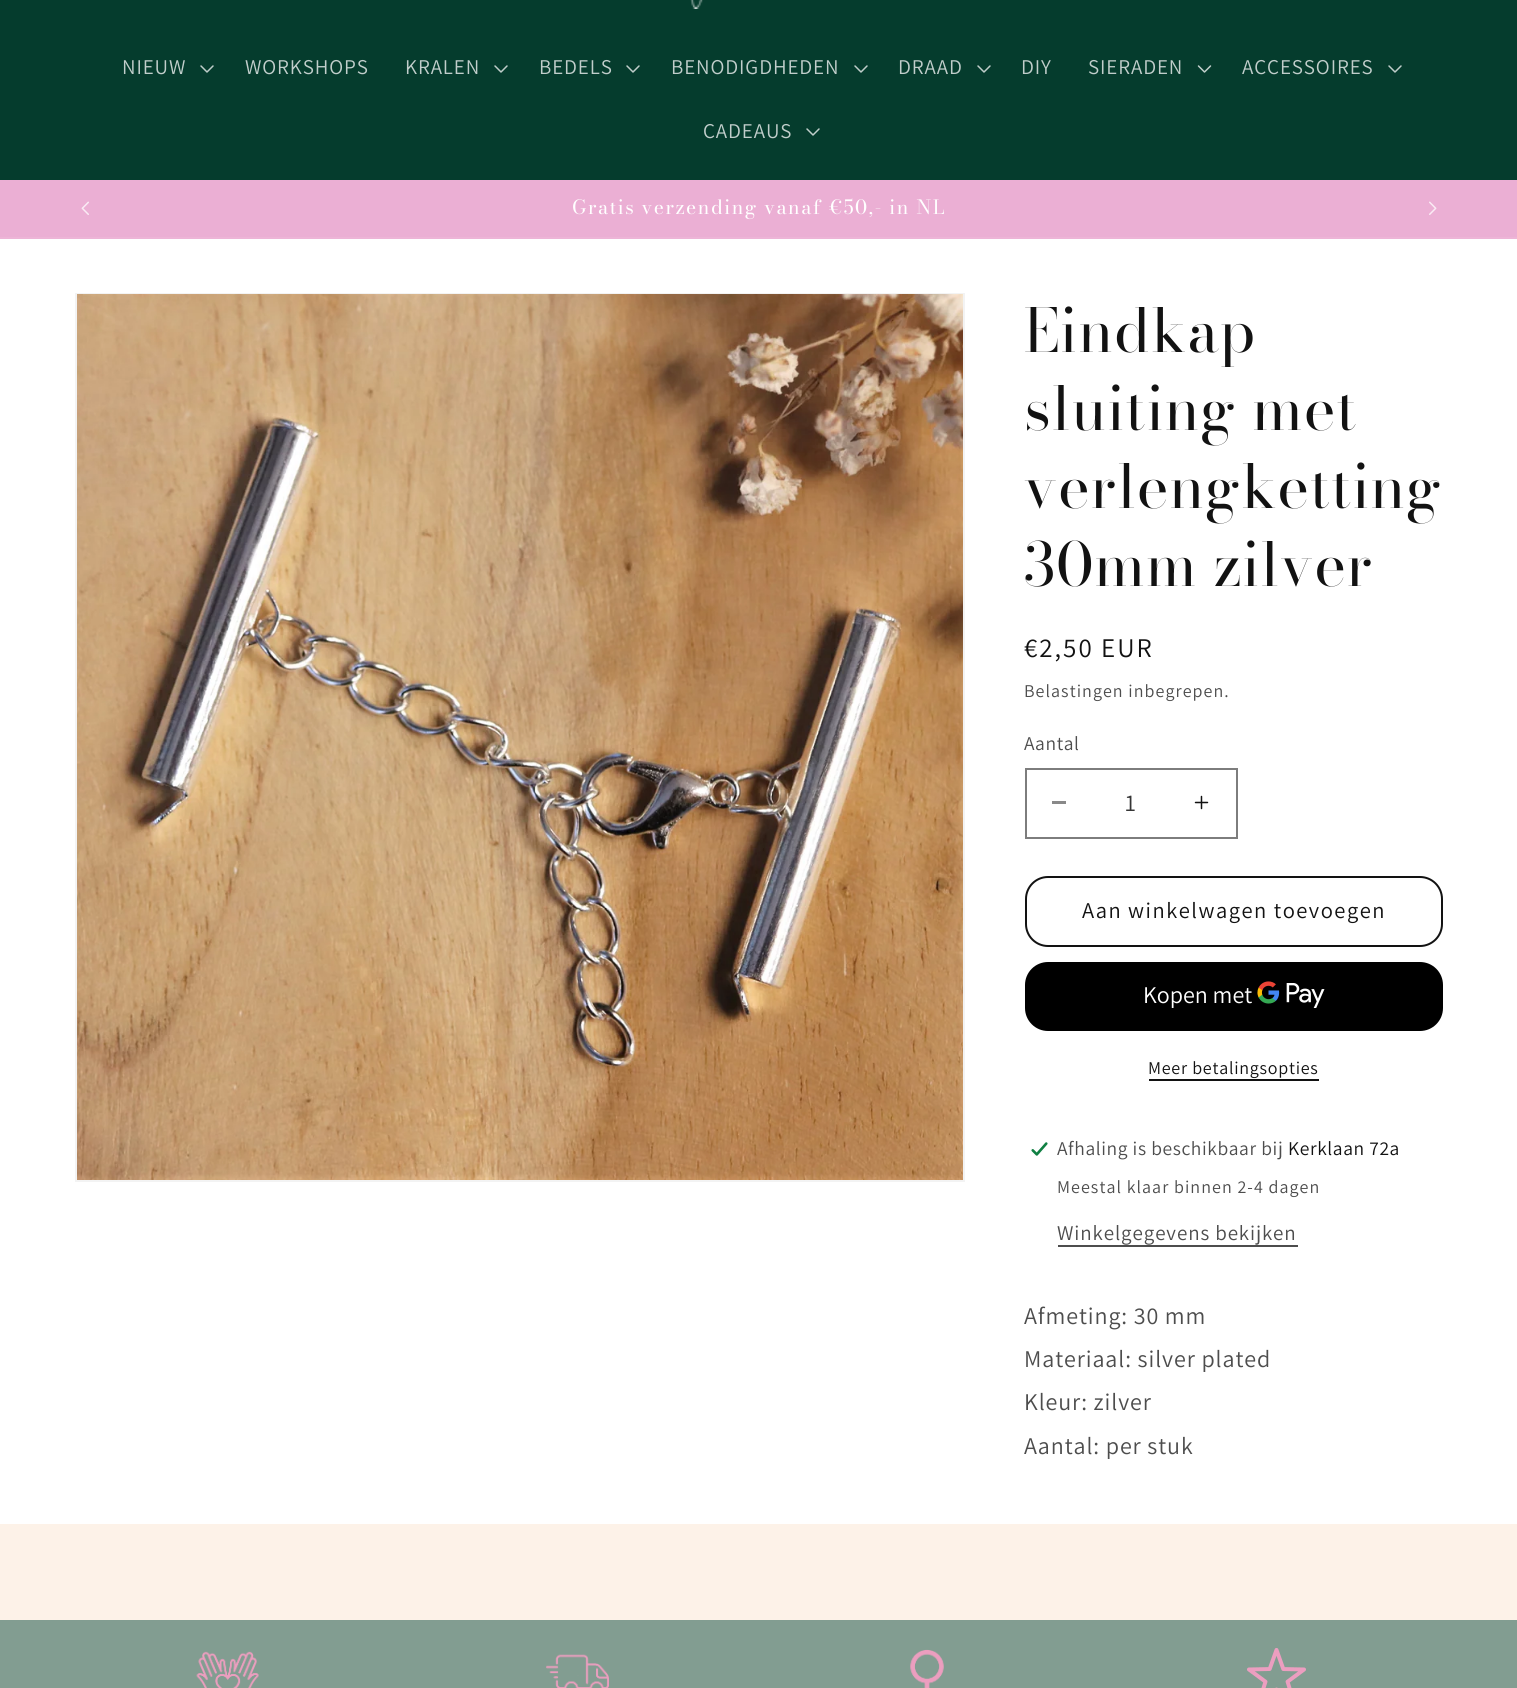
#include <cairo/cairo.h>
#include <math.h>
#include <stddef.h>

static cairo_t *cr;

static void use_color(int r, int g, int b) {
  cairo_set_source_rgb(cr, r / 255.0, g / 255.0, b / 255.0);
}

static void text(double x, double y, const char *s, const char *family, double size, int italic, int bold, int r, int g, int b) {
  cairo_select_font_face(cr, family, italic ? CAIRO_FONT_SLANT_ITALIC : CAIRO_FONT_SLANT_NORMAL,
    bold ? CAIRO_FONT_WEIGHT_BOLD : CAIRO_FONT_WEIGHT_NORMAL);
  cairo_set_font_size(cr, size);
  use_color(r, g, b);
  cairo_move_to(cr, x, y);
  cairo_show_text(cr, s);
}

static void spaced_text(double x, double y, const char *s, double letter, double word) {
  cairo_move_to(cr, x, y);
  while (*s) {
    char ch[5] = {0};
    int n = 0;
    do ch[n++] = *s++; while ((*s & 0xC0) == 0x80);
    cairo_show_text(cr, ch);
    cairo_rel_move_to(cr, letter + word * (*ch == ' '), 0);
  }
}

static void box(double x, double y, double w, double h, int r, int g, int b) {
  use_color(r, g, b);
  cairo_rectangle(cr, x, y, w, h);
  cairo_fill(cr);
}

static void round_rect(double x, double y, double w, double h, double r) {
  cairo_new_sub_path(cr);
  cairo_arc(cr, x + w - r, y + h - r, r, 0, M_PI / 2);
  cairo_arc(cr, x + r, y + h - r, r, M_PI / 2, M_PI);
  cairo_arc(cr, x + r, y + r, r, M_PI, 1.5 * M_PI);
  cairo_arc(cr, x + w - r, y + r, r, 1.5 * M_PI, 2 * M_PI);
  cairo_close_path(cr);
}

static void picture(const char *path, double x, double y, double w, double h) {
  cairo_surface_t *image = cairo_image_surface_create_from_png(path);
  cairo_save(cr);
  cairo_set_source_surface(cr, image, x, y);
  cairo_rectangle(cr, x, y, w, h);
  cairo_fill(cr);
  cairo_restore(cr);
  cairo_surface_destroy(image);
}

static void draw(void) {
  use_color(255, 255, 255);
  cairo_paint(cr);
  box(0, 0, 1517, 180, 5, 60, 45);
  picture("img_01.png", 690, 0, 13, 9);
  picture("img_02.png", 200, 65, 14, 8);
  picture("img_02.png", 494, 65, 14, 8);
  picture("img_02.png", 626, 65, 14, 8);
  picture("img_02.png", 854, 65, 14, 8);
  picture("img_02.png", 977, 65, 14, 8);
  picture("img_03.png", 1197, 65, 15, 8);
  picture("img_02.png", 1388, 65, 14, 8);
  picture("img_02.png", 806, 128, 14, 8);
  box(0, 180, 1517, 57, 235, 175, 212);
  box(0, 237, 1517, 2, 237, 181, 215);
  picture("img_04.png", 81, 201, 8, 14);
  picture("img_05.png", 1429, 201, 8, 14);
  cairo_rectangle(cr, 76, 294, 888, 887);
  use_color(243, 243, 243);
  cairo_stroke(cr);
  picture("img_06.png", 77, 294, 886, 886);
  box(1052, 801, 14, 3, 137, 137, 137);
  picture("img_07.png", 1194, 795, 15, 15);
  cairo_rectangle(cr, 1026, 769, 211, 69);
  use_color(125, 125, 125);
  cairo_stroke(cr);
  round_rect(1026, 877, 416, 69, 22);
  use_color(18, 18, 18);
  cairo_stroke(cr);
  use_color(0, 0, 0);
  round_rect(1025, 962, 418, 69, 23);
  cairo_fill(cr);
  picture("img_08.png", 1257, 981, 68, 27);
  box(1149, 1079, 170, 2, 18, 18, 18);
  picture("img_09.png", 1030, 1142, 18, 14);
  box(1058, 1245, 240, 2, 77, 77, 77);
  box(0, 1524, 1517, 96, 253, 242, 232);
  box(0, 1620, 1517, 68, 130, 157, 145);
  picture("img_10.png", 196, 1651, 63, 37);
  picture("img_11.png", 546, 1654, 63, 34);
  picture("img_12.png", 910, 1649, 34, 39);
  picture("img_13.png", 1247, 1648, 59, 40);
  cairo_select_font_face(cr, "Assistant", CAIRO_FONT_SLANT_NORMAL, CAIRO_FONT_WEIGHT_NORMAL);
  cairo_set_font_size(cr, 21);
  use_color(193, 206, 203);
  spaced_text(122, 74, "NIEUW", 0.9, 0);
  spaced_text(245, 74, "WORKSHOPS", 0.9, 0);
  spaced_text(405, 74, "KRALEN", 0.9, 0);
  spaced_text(539, 74, "BEDELS", 0.9, 0);
  spaced_text(671, 74, "BENODIGDHEDEN", 0.9, 0);
  spaced_text(898, 74, "DRAAD", 0.9, 0);
  spaced_text(1021, 74, "DIY", 0.9, 0);
  spaced_text(1088, 74, "SIERADEN", 0.9, 0);
  spaced_text(1242, 74, "ACCESSOIRES", 0.9, 0);
  spaced_text(703, 138, "CADEAUS", 0.9, 0);
  cairo_select_font_face(cr, "Bodoni Moda", CAIRO_FONT_SLANT_NORMAL, CAIRO_FONT_WEIGHT_NORMAL);
  cairo_set_font_size(cr, 19.5);
  use_color(255, 255, 255);
  spaced_text(572, 214, "Gratis verzending vanaf €50,- in NL", 1.5, 0);
  cairo_select_font_face(cr, "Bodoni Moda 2", CAIRO_FONT_SLANT_NORMAL, CAIRO_FONT_WEIGHT_NORMAL);
  cairo_set_font_size(cr, 60);
  use_color(18, 18, 18);
  spaced_text(1024, 352, "Eindkap", 0.9, 0);
  spaced_text(1024, 430, "sluiting met", 0.9, 0);
  spaced_text(1024, 508, "verlengketting", 0.9, 0);
  spaced_text(1024, 586, "30mm zilver", 0.9, 0);
  cairo_select_font_face(cr, "Assistant", CAIRO_FONT_SLANT_NORMAL, CAIRO_FONT_WEIGHT_NORMAL);
  cairo_set_font_size(cr, 27);
  spaced_text(1024, 657, "€2,50 EUR", 2, 0);
  cairo_set_font_size(cr, 18);
  use_color(77, 77, 77);
  spaced_text(1024, 697, "Belastingen inbegrepen.", 1.05, 0);
  cairo_set_font_size(cr, 19.5);
  spaced_text(1024, 750, "Aantal", 0.6, 0);
  text(1125, 811, "1", "Assistant", 24, 0, 0, 54, 54, 54);
  cairo_set_font_size(cr, 22.5);
  use_color(18, 18, 18);
  spaced_text(1082, 918, "Aan winkelwagen toevoegen", 1.5, 0);
  text(1143, 1003, "Kopen met", "Assistant", 24, 0, 0, 255, 255, 255);
  cairo_set_font_size(cr, 18);
  use_color(18, 18, 18);
  spaced_text(1148, 1074, "Meer betalingsopties", 0.75, 0);
  cairo_set_font_size(cr, 19.5);
  use_color(77, 77, 77);
  spaced_text(1057, 1155, "Afhaling is beschikbaar bij", 0.6, 0);
  use_color(18, 18, 18);
  spaced_text(1288, 1155, "Kerklaan 72a", 0.6, 0);
  cairo_set_font_size(cr, 18);
  use_color(77, 77, 77);
  spaced_text(1057, 1193, "Meestal klaar binnen 2-4 dagen", 1.05, 0);
  cairo_set_font_size(cr, 21);
  spaced_text(1057, 1240, "Winkelgegevens bekijken", 0.9, 0);
  cairo_set_font_size(cr, 24);
  spaced_text(1024, 1324, "Afmeting: 30 mm", 0.9, 0);
  spaced_text(1024, 1367, "Materiaal: silver plated", 0.9, 0);
  spaced_text(1024, 1410, "Kleur: zilver", 0.9, 0);
  spaced_text(1024, 1454, "Aantal: per stuk", 0.9, 0);
}

int main(void) {
  cairo_surface_t *surface = cairo_image_surface_create(CAIRO_FORMAT_RGB24, 1517, 1688);
  cr = cairo_create(surface);
  cairo_font_options_t *options = cairo_font_options_create();
  cairo_font_options_set_hint_metrics(options, CAIRO_HINT_METRICS_OFF);
  cairo_font_options_set_hint_style(options, CAIRO_HINT_STYLE_NONE);
  cairo_set_font_options(cr, options);
  cairo_set_miter_limit(cr, 4);
  draw();
  cairo_surface_write_to_png(surface, "out.png");
  cairo_font_options_destroy(options);
  cairo_destroy(cr);
  cairo_surface_destroy(surface);
  return 0;
}
